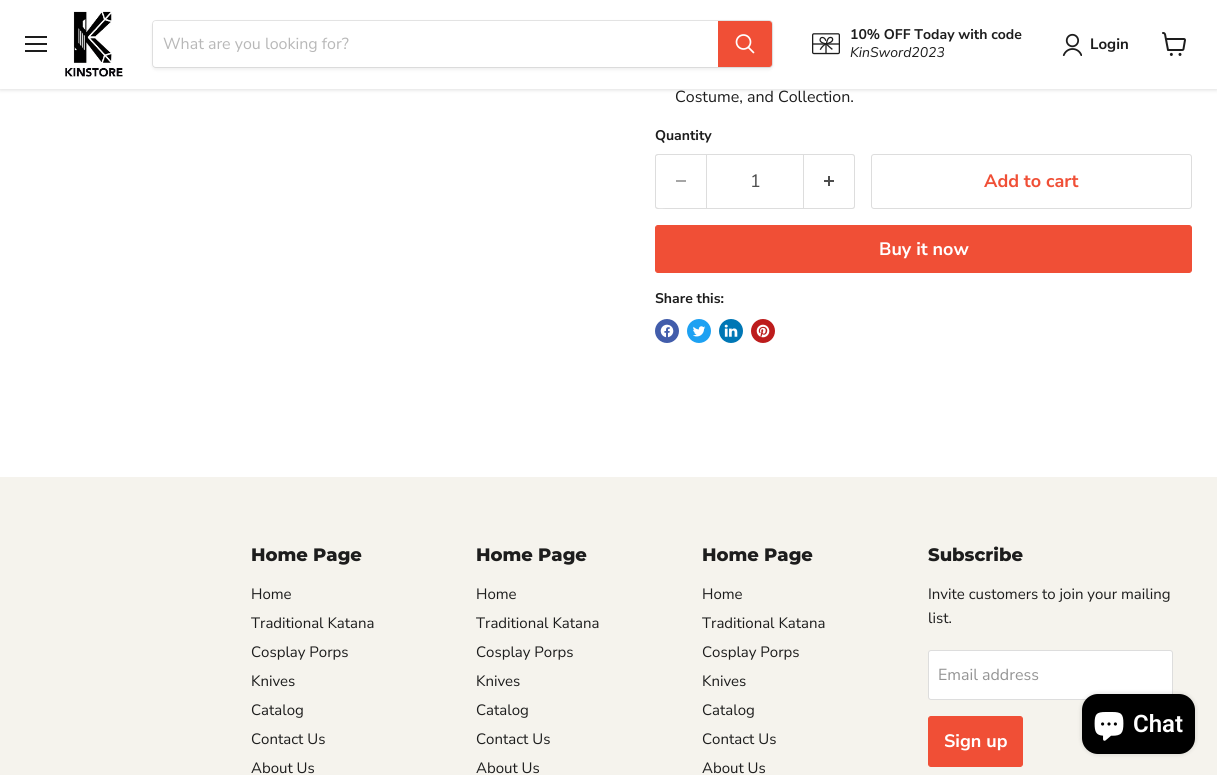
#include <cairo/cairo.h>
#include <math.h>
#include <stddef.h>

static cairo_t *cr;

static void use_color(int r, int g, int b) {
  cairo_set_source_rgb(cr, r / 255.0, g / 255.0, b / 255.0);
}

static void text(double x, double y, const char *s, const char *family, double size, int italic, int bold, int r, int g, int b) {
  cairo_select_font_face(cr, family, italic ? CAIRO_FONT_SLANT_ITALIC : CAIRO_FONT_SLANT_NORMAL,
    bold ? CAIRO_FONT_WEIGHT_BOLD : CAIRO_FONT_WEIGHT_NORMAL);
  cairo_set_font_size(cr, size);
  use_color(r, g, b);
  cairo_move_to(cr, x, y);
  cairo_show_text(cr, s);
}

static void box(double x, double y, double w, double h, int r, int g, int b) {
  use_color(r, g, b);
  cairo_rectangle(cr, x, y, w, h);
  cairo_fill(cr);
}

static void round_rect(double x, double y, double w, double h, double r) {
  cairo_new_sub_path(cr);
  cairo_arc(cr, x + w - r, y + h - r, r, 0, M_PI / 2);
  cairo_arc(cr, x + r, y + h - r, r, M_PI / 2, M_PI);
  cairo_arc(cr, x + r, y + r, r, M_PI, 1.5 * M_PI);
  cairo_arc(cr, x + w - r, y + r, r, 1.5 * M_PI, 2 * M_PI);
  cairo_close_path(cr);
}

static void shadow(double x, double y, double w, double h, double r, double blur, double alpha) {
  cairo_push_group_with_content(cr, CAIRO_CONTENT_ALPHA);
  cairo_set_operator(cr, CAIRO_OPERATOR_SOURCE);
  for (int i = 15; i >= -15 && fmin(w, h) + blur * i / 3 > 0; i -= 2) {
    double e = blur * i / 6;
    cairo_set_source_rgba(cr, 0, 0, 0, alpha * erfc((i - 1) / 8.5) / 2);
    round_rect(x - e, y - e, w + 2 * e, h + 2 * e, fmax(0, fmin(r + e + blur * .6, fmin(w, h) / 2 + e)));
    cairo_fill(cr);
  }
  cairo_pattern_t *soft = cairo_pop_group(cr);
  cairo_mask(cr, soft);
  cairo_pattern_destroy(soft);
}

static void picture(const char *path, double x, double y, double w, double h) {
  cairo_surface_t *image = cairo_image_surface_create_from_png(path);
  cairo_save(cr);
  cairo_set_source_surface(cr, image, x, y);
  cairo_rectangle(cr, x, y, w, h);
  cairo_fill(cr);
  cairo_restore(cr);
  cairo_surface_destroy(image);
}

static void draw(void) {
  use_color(255, 255, 255);
  cairo_paint(cr);
  use_color(128, 128, 128);
  shadow(0, 1, 1217, 89, 0, 2, 0.25);
  box(0, 0, 1217, 89, 255, 255, 255);
  box(25, 36, 22, 2, 29, 29, 29);
  box(25, 43, 22, 2, 29, 29, 29);
  box(25, 50, 22, 2, 29, 29, 29);
  picture("img_01.png", 65, 11, 58, 66);
  use_color(128, 128, 128);
  shadow(152, 22, 621, 48, 4, 1.5, 0.11);
  round_rect(152.5, 20.5, 620, 47, 3.5);
  cairo_set_source_rgba(cr, 0.502, 0.502, 0.502, 0.2);
  cairo_set_line_width(cr, 1);
  cairo_stroke(cr);
  use_color(255, 255, 255);
  cairo_new_path(cr);
  cairo_move_to(cr, 156, 21);
  cairo_line_to(cr, 718, 21);
  cairo_line_to(cr, 718, 67);
  cairo_line_to(cr, 156, 67);
  cairo_curve_to(cr, 154.5, 67, 153, 65.5, 153, 64);
  cairo_line_to(cr, 153, 24);
  cairo_curve_to(cr, 153, 22.5, 154.5, 21, 156, 21);
  cairo_close_path(cr);
  cairo_fill(cr);
  use_color(240, 79, 54);
  cairo_new_path(cr);
  cairo_move_to(cr, 718.5, 21.5);
  cairo_line_to(cr, 769, 21.5);
  cairo_curve_to(cr, 770.5, 21.5, 771.5, 22.5, 771.5, 24);
  cairo_line_to(cr, 771.5, 64);
  cairo_curve_to(cr, 771.5, 65.5, 770.5, 66.5, 769, 66.5);
  cairo_line_to(cr, 718.5, 66.5);
  cairo_close_path(cr);
  cairo_fill_preserve(cr);
  cairo_stroke(cr);
  cairo_new_path(cr);
  cairo_move_to(cr, 753.5, 52.5);
  cairo_line_to(cr, 748.5, 47.5);
  use_color(255, 255, 255);
  cairo_set_line_width(cr, 1.7);
  cairo_set_line_cap(cr, CAIRO_LINE_CAP_ROUND);
  cairo_stroke(cr);
  cairo_arc(cr, 743.5, 42, 7, 0, 2 * M_PI);
  cairo_set_line_cap(cr, CAIRO_LINE_CAP_BUTT);
  cairo_stroke(cr);
  picture("img_02.png", 812, 33, 28, 22);
  picture("img_03.png", 1062, 33, 20, 23);
  picture("img_04.png", 1162, 32, 24, 24);
  use_color(221, 221, 221);
  cairo_set_fill_rule(cr, CAIRO_FILL_RULE_EVEN_ODD);
  cairo_new_path(cr);
  cairo_move_to(cr, 658, 154);
  cairo_line_to(cr, 706, 154);
  cairo_line_to(cr, 706, 209);
  cairo_line_to(cr, 658, 209);
  cairo_curve_to(cr, 656, 209, 655, 208, 655, 206);
  cairo_line_to(cr, 655, 157);
  cairo_curve_to(cr, 655, 155, 656, 154, 658, 154);
  cairo_close_path(cr);
  cairo_move_to(cr, 658, 155);
  cairo_line_to(cr, 706, 155);
  cairo_line_to(cr, 706, 208);
  cairo_line_to(cr, 666, 208);
  cairo_curve_to(cr, 662, 208, 656, 209, 656, 206);
  cairo_line_to(cr, 656, 156);
  cairo_close_path(cr);
  cairo_fill(cr);
  box(676, 180, 10, 2, 166, 166, 166);
  cairo_rectangle(cr, 706.5, 154.5, 97, 54);
  use_color(221, 221, 221);
  cairo_set_line_width(cr, 1);
  cairo_stroke(cr);
  cairo_new_path(cr);
  cairo_move_to(cr, 804, 154);
  cairo_line_to(cr, 852, 154);
  cairo_curve_to(cr, 854, 154, 855, 155, 855, 157);
  cairo_line_to(cr, 855, 206);
  cairo_curve_to(cr, 855, 208, 854, 209, 852, 209);
  cairo_line_to(cr, 804, 209);
  cairo_close_path(cr);
  cairo_move_to(cr, 804, 155);
  cairo_line_to(cr, 852, 155);
  cairo_curve_to(cr, 853, 155, 854, 156, 854, 157);
  cairo_line_to(cr, 854, 206);
  cairo_curve_to(cr, 854, 207, 853, 208, 852, 208);
  cairo_line_to(cr, 804, 208);
  cairo_close_path(cr);
  cairo_fill(cr);
  picture("img_05.png", 824, 176, 10, 10);
  round_rect(871.5, 154.5, 320, 54, 2.5);
  cairo_stroke(cr);
  use_color(240, 79, 54);
  round_rect(655.5, 225.5, 536, 47, 2.5);
  cairo_fill_preserve(cr);
  cairo_stroke(cr);
  use_color(66, 93, 171);
  cairo_arc(cr, 667, 331, 12, 0, 2 * M_PI);
  cairo_fill(cr);
  picture("img_06.png", 660, 324, 14, 14);
  use_color(29, 161, 242);
  cairo_arc(cr, 699, 331, 12, 0, 2 * M_PI);
  cairo_fill(cr);
  picture("img_07.png", 693, 326, 13, 11);
  use_color(0, 119, 181);
  cairo_arc(cr, 731, 331, 12, 0, 2 * M_PI);
  cairo_fill(cr);
  picture("img_08.png", 724, 324, 14, 13);
  use_color(189, 28, 28);
  cairo_arc(cr, 763, 331, 12, 0, 2 * M_PI);
  cairo_fill(cr);
  picture("img_09.png", 756, 324, 14, 14);
  box(0, 477, 1217, 298, 245, 243, 237);
  use_color(255, 255, 255);
  round_rect(928.5, 650.5, 244, 49, 2.5);
  cairo_fill_preserve(cr);
  use_color(221, 221, 221);
  cairo_stroke(cr);
  use_color(240, 79, 54);
  round_rect(928.5, 716.5, 94, 50, 2.5);
  cairo_fill_preserve(cr);
  cairo_stroke(cr);
  use_color(0, 0, 0);
  shadow(1082, 694, 113, 60, 16, 2.5, 0.15);
  use_color(0, 0, 0);
  round_rect(1082, 694, 113, 60, 16);
  cairo_fill(cr);
  picture("img_10.png", 1094, 712, 30, 29);
  text(163, 49, "What are you looking for?", "Nunito Sans", 16, 0, 0, 184, 184, 184);
  text(850, 39, "10% OFF Today with code", "Nunito Sans", 14, 0, 1, 29, 29, 29);
  text(850, 57, "KinSword2023", "Nunito Sans", 14, 1, 0, 29, 29, 29);
  text(1090, 49, "Login", "Nunito Sans", 15, 0, 1, 29, 29, 29);
  text(675, 102, "Costume, and Collection.", "Nunito Sans", 16, 0, 0, 29, 29, 29);
  text(655, 140, "Quantity", "Nunito Sans", 14, 0, 1, 29, 29, 29);
  text(750, 187, "1", "Nunito Sans", 18, 0, 0, 77, 77, 77);
  text(984, 187, "Add to cart", "Nunito Sans", 18, 0, 1, 240, 79, 54);
  text(879, 255, "Buy it now", "Nunito Sans", 18, 0, 1, 255, 255, 255);
  text(655, 303, "Share this:", "Nunito Sans", 14, 0, 1, 29, 29, 29);
  text(251, 561, "Home Page", "Montserrat ExtraBold", 18, 0, 0, 29, 29, 29);
  text(251, 599, "Home", "Nunito Sans", 15, 0, 0, 29, 29, 29);
  text(251, 628, "Traditional Katana", "Nunito Sans", 15, 0, 0, 29, 29, 29);
  text(251, 657, "Cosplay Porps", "Nunito Sans", 15, 0, 0, 29, 29, 29);
  text(251, 686, "Knives", "Nunito Sans", 15, 0, 0, 29, 29, 29);
  text(251, 715, "Catalog", "Nunito Sans", 15, 0, 0, 29, 29, 29);
  text(251, 744, "Contact Us", "Nunito Sans", 15, 0, 0, 29, 29, 29);
  text(251, 773, "About Us", "Nunito Sans", 15, 0, 0, 29, 29, 29);
  text(476, 561, "Home Page", "Montserrat ExtraBold", 18, 0, 0, 29, 29, 29);
  text(476, 599, "Home", "Nunito Sans", 15, 0, 0, 29, 29, 29);
  text(476, 628, "Traditional Katana", "Nunito Sans", 15, 0, 0, 29, 29, 29);
  text(476, 657, "Cosplay Porps", "Nunito Sans", 15, 0, 0, 29, 29, 29);
  text(476, 686, "Knives", "Nunito Sans", 15, 0, 0, 29, 29, 29);
  text(476, 715, "Catalog", "Nunito Sans", 15, 0, 0, 29, 29, 29);
  text(476, 744, "Contact Us", "Nunito Sans", 15, 0, 0, 29, 29, 29);
  text(476, 773, "About Us", "Nunito Sans", 15, 0, 0, 29, 29, 29);
  text(702, 561, "Home Page", "Montserrat ExtraBold", 18, 0, 0, 29, 29, 29);
  text(702, 599, "Home", "Nunito Sans", 15, 0, 0, 29, 29, 29);
  text(702, 628, "Traditional Katana", "Nunito Sans", 15, 0, 0, 29, 29, 29);
  text(702, 657, "Cosplay Porps", "Nunito Sans", 15, 0, 0, 29, 29, 29);
  text(702, 686, "Knives", "Nunito Sans", 15, 0, 0, 29, 29, 29);
  text(702, 715, "Catalog", "Nunito Sans", 15, 0, 0, 29, 29, 29);
  text(702, 744, "Contact Us", "Nunito Sans", 15, 0, 0, 29, 29, 29);
  text(702, 773, "About Us", "Nunito Sans", 15, 0, 0, 29, 29, 29);
  text(928, 561, "Subscribe", "Montserrat ExtraBold", 18, 0, 0, 29, 29, 29);
  text(928, 599, "Invite customers to join your mailing", "Nunito Sans", 15, 0, 0, 29, 29, 29);
  text(928, 623, "list.", "Nunito Sans", 15, 0, 0, 29, 29, 29);
  text(938, 680, "Email address", "Nunito Sans", 16, 0, 0, 148, 148, 148);
  text(944, 747, "Sign up", "Nunito Sans", 18, 0, 1, 255, 255, 255);
  text(1133, 732, "Chat", "Roboto SemiBold", 24, 0, 0, 255, 255, 255);
}

int main(void) {
  cairo_surface_t *surface = cairo_image_surface_create(CAIRO_FORMAT_RGB24, 1217, 775);
  cr = cairo_create(surface);
  cairo_font_options_t *options = cairo_font_options_create();
  cairo_font_options_set_hint_metrics(options, CAIRO_HINT_METRICS_OFF);
  cairo_font_options_set_hint_style(options, CAIRO_HINT_STYLE_NONE);
  cairo_set_font_options(cr, options);
  cairo_set_miter_limit(cr, 4);
  draw();
  cairo_surface_write_to_png(surface, "out.png");
  cairo_font_options_destroy(options);
  cairo_destroy(cr);
  cairo_surface_destroy(surface);
  return 0;
}
